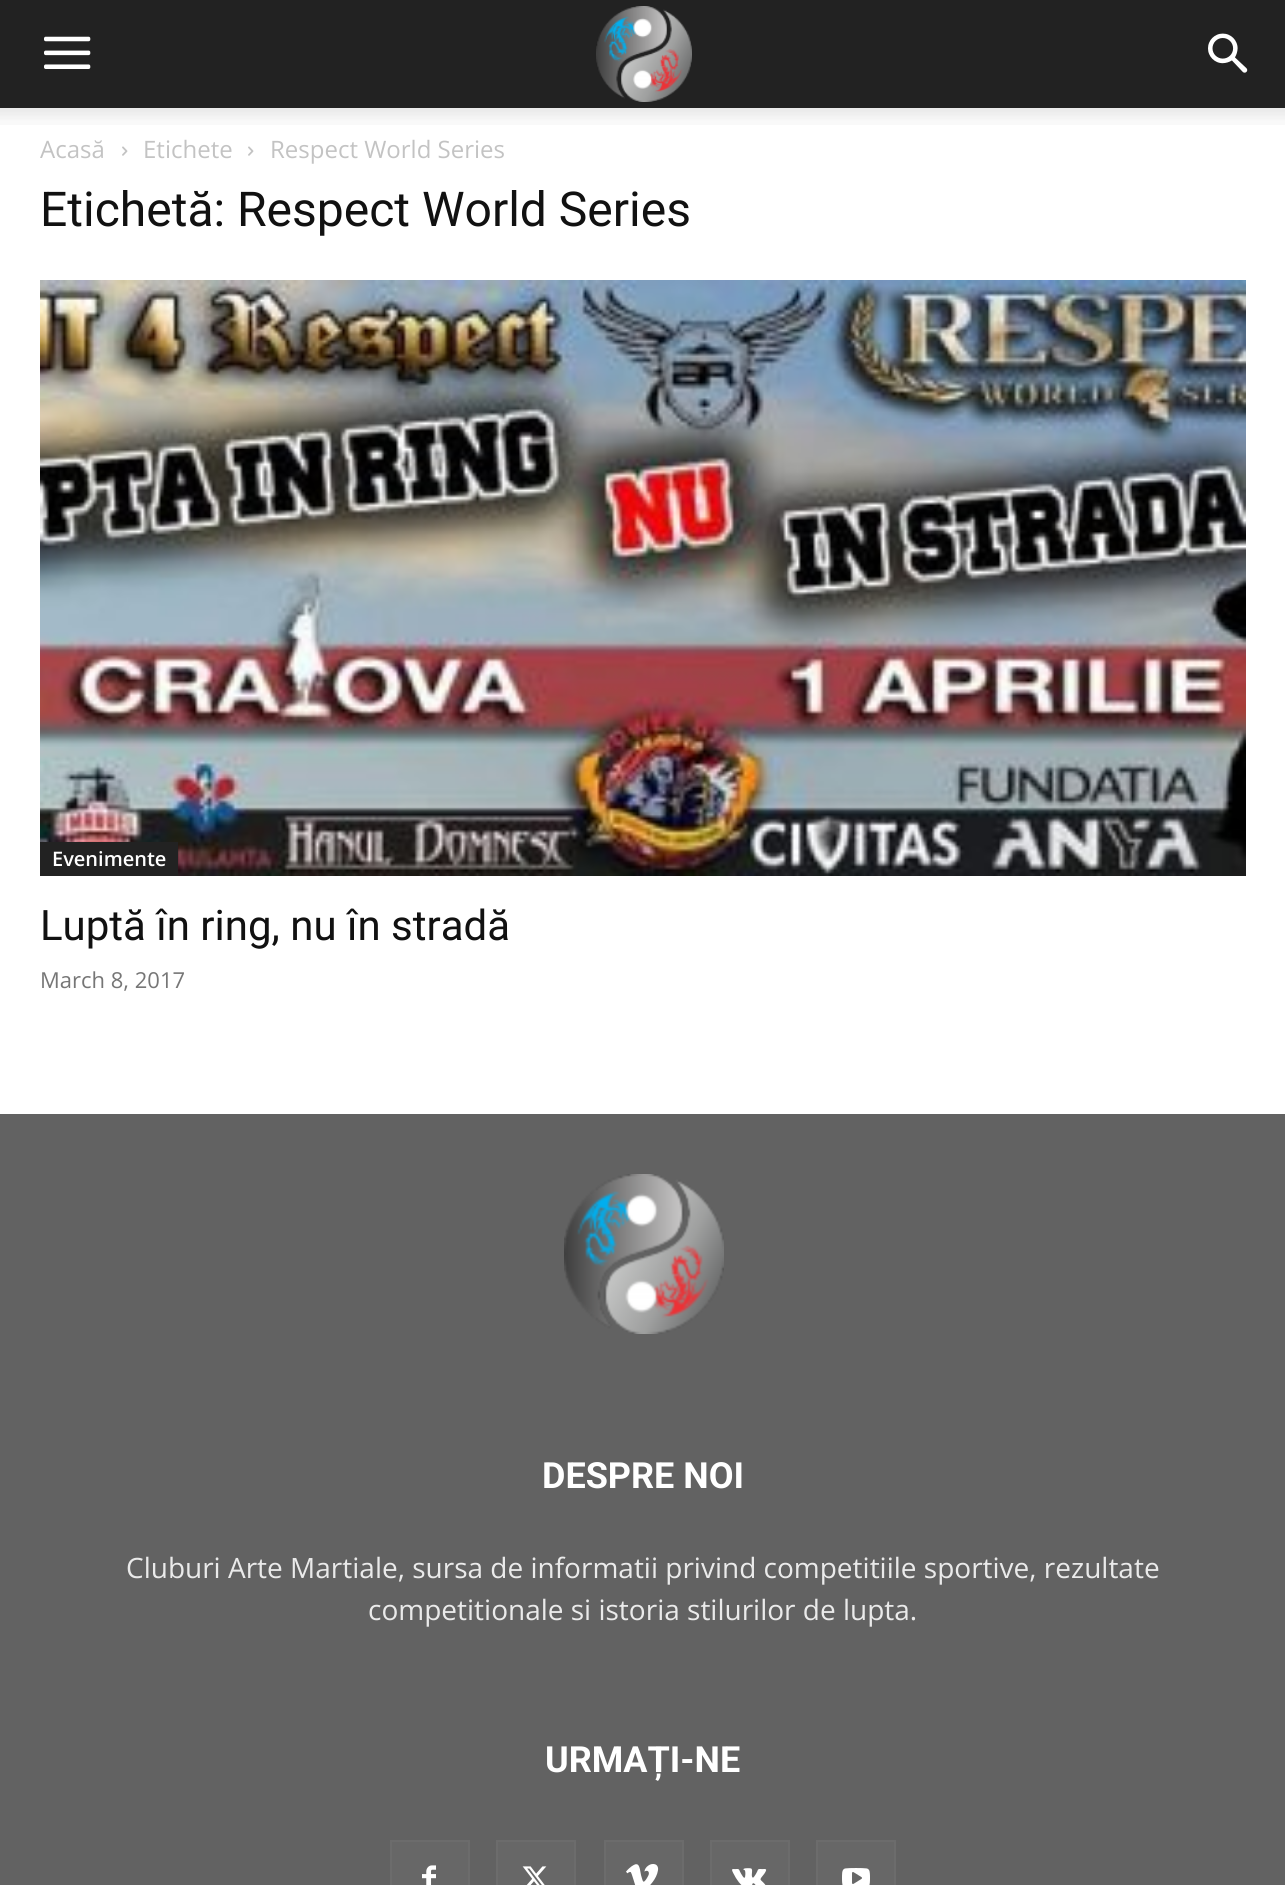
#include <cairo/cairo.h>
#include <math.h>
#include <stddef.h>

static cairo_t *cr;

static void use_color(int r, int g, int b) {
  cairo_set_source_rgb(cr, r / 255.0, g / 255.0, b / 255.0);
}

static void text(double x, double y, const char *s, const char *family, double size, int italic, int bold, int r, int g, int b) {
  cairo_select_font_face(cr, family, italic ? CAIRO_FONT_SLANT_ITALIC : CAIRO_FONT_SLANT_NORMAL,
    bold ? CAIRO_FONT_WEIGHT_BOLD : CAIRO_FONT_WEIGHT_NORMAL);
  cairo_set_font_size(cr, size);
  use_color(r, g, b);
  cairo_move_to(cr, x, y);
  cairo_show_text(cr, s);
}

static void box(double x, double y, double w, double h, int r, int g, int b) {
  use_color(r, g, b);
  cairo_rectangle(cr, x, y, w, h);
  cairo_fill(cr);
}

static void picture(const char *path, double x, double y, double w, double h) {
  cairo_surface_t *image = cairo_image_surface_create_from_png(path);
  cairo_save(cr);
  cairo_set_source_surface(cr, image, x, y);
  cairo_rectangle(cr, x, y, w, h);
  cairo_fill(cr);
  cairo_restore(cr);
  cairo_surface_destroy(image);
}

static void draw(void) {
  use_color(255, 255, 255);
  cairo_paint(cr);
  box(0, 0, 1285, 108, 34, 34, 34);
  picture("img_01.png", 44, 36, 47, 33);
  picture("img_02.png", 596, 6, 96, 96);
  picture("img_03.png", 1208, 33, 40, 40);
  picture("img_04.png", 0, 108, 1285, 17);
  picture("img_05.png", 122, 146, 6, 10);
  picture("img_05.png", 248, 146, 6, 10);
  picture("img_06.png", 40, 280, 1206, 596);
  box(40, 842, 138, 34, 34, 34, 34);
  box(0, 1114, 1285, 771, 98, 98, 98);
  picture("img_07.png", 564, 1174, 160, 160);
  box(392, 1842, 76, 43, 103, 103, 103);
  picture("img_08.png", 422, 1865, 14, 20);
  cairo_rectangle(cr, 391, 1841, 78, 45);
  use_color(108, 108, 108);
  cairo_stroke(cr);
  box(498, 1842, 76, 43, 103, 103, 103);
  picture("img_09.png", 522, 1866, 25, 19);
  cairo_rectangle(cr, 497, 1841, 78, 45);
  use_color(108, 108, 108);
  cairo_stroke(cr);
  box(606, 1842, 76, 43, 103, 103, 103);
  picture("img_10.png", 626, 1864, 33, 21);
  cairo_rectangle(cr, 605, 1841, 78, 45);
  use_color(108, 108, 108);
  cairo_stroke(cr);
  box(712, 1842, 76, 43, 103, 103, 103);
  picture("img_11.png", 732, 1868, 35, 17);
  cairo_rectangle(cr, 711, 1841, 78, 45);
  use_color(108, 108, 108);
  cairo_stroke(cr);
  box(818, 1842, 76, 43, 103, 103, 103);
  picture("img_12.png", 842, 1868, 28, 17);
  cairo_rectangle(cr, 817, 1841, 78, 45);
  use_color(108, 108, 108);
  cairo_stroke(cr);
  text(40, 158, "Acasă", "Open Sans", 24, 0, 0, 195, 195, 195);
  text(143, 158, "Etichete", "Open Sans", 24, 0, 0, 195, 195, 195);
  text(270, 158, "Respect World Series", "Open Sans", 24, 0, 0, 195, 195, 195);
  text(40, 226, "Etichetă: Respect World Series", "Roboto", 48, 0, 0, 17, 17, 17);
  text(52, 866, "Evenimente", "Open Sans SemiBold", 20, 0, 0, 255, 255, 255);
  text(40, 940, "Luptă în ring, nu în stradă", "Roboto", 42, 0, 0, 17, 17, 17);
  text(40, 988, "March 8, 2017", "Open Sans", 22, 0, 0, 118, 118, 118);
  text(542, 1488, "DESPRE NOI", "Roboto", 36, 0, 1, 255, 255, 255);
  text(126, 1578, "Cluburi Arte Martiale, sursa de informatii privind competitiile sportive, rezultate", "Open Sans", 28, 0, 0, 234, 234, 234);
  text(368, 1620, "competitionale si istoria stilurilor de lupta.", "Open Sans", 28, 0, 0, 234, 234, 234);
  text(545, 1772, "URMAȚI-NE", "Roboto", 36, 0, 1, 255, 255, 255);
}

int main(void) {
  cairo_surface_t *surface = cairo_image_surface_create(CAIRO_FORMAT_RGB24, 1285, 1885);
  cr = cairo_create(surface);
  cairo_font_options_t *options = cairo_font_options_create();
  cairo_font_options_set_hint_metrics(options, CAIRO_HINT_METRICS_OFF);
  cairo_font_options_set_hint_style(options, CAIRO_HINT_STYLE_NONE);
  cairo_set_font_options(cr, options);
  cairo_set_miter_limit(cr, 4);
  draw();
  cairo_surface_write_to_png(surface, "out.png");
  cairo_font_options_destroy(options);
  cairo_destroy(cr);
  cairo_surface_destroy(surface);
  return 0;
}
